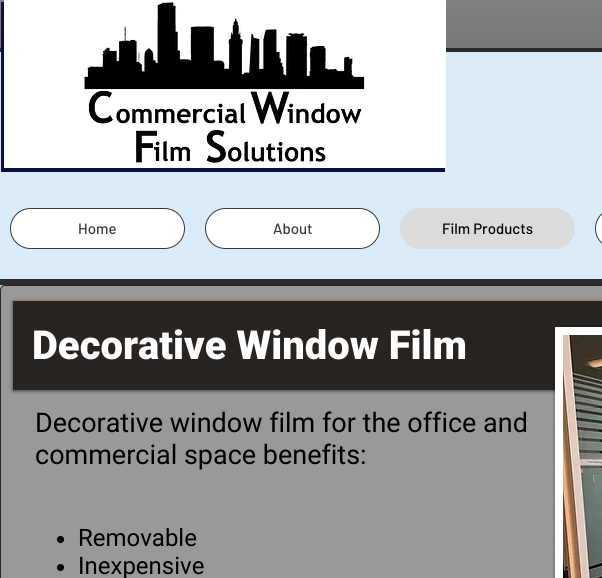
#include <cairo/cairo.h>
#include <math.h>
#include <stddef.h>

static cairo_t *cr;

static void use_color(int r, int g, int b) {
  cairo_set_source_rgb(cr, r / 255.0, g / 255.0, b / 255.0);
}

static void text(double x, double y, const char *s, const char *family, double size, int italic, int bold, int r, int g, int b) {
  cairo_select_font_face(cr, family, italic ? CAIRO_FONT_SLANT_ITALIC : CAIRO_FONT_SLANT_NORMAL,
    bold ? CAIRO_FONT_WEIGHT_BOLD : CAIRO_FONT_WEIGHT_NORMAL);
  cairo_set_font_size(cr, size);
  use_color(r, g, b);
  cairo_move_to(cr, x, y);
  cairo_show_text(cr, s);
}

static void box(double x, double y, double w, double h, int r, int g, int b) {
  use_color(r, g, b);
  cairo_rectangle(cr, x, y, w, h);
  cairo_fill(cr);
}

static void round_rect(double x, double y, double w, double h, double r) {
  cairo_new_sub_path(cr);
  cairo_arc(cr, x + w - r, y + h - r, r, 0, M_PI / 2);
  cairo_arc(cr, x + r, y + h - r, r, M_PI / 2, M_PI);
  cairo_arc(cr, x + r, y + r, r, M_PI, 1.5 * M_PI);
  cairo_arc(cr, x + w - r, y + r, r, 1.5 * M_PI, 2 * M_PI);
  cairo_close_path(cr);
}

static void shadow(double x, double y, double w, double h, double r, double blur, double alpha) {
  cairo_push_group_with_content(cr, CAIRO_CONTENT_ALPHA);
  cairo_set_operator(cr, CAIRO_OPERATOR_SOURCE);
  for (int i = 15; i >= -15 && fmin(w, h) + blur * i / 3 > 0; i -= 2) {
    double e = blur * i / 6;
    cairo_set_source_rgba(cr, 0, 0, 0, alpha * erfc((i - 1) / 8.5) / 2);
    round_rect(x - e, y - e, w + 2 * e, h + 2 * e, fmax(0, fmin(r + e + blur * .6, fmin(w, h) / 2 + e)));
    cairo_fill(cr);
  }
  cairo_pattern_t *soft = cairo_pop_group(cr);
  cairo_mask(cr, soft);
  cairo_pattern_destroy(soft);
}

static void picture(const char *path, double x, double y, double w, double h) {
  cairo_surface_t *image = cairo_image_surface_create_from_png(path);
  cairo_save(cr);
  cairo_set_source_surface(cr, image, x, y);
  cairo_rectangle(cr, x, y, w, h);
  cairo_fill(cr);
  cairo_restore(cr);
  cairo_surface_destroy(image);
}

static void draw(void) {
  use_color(162, 205, 242);
  cairo_paint(cr);
  box(0, 52, 602, 227, 218, 235, 250);
  box(0, 279, 602, 6, 47, 46, 46);
  box(0, 0, 602, 48, 84, 84, 84);
  box(0, 48, 602, 4, 42, 42, 42);
  picture("img_01.png", 0, 0, 602, 48);
  use_color(14, 14, 63);
  cairo_new_path(cr);
  cairo_move_to(cr, 1, 2);
  cairo_line_to(cr, 1, 172);
  cairo_line_to(cr, 445, 172);
  cairo_line_to(cr, 445, 168);
  cairo_line_to(cr, 4, 168);
  cairo_line_to(cr, 4, 2);
  cairo_close_path(cr);
  cairo_fill(cr);
  box(4, 0, 442, 168, 255, 255, 255);
  picture("img_02.png", 84, 2, 281, 163);
  round_rect(10.5, 208.5, 174, 40, 20);
  cairo_fill_preserve(cr);
  use_color(56, 56, 56);
  cairo_set_line_width(cr, 1);
  cairo_stroke(cr);
  use_color(255, 255, 255);
  round_rect(205.5, 208.5, 174, 40, 20);
  cairo_fill_preserve(cr);
  use_color(56, 56, 56);
  cairo_stroke(cr);
  use_color(219, 219, 219);
  round_rect(400, 208, 175, 41, 20.5);
  cairo_fill(cr);
  use_color(255, 255, 255);
  round_rect(595.5, 208.5, 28, 40, 20);
  cairo_fill_preserve(cr);
  use_color(56, 56, 56);
  cairo_stroke(cr);
  use_color(153, 153, 153);
  round_rect(0.5, 285.5, 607, 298, 4.5);
  cairo_fill_preserve(cr);
  use_color(42, 36, 33);
  cairo_stroke(cr);
  use_color(0, 0, 0);
  shadow(13, 302, 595, 89, 0, 2, 0.6);
  box(13, 301, 589, 89, 42, 36, 33);
  use_color(0, 0, 0);
  shadow(555, 327, 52, 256, 0, 1.5, 0.5);
  box(555, 327, 47, 251, 255, 255, 255);
  picture("img_03.png", 563, 335, 39, 243);
  use_color(0, 0, 0);
  cairo_arc(cr, 60.5, 539.5, 3.5, 0, 2 * M_PI);
  cairo_fill(cr);
  cairo_arc(cr, 60.5, 567.5, 3.5, 0, 2 * M_PI);
  cairo_fill(cr);
  text(78, 234, "Home", "Barlow Medium", 15, 0, 0, 56, 56, 56);
  text(273, 234, "About", "Barlow Medium", 15, 0, 0, 56, 56, 56);
  text(442, 234, "Film Products", "Barlow Medium", 15, 0, 0, 0, 0, 0);
  text(32, 359, "Decorative Window Film", "Roboto Black", 40, 0, 0, 255, 255, 255);
  text(35, 432, "Decorative window film for the office and", "Roboto", 27, 0, 0, 0, 0, 0);
  text(35, 464, "commercial space benefits:", "Roboto", 27, 0, 0, 0, 0, 0);
  text(78, 546, "Removable", "Roboto", 24, 0, 0, 0, 0, 0);
  text(78, 574, "Inexpensive", "Roboto", 24, 0, 0, 0, 0, 0);
}

int main(void) {
  cairo_surface_t *surface = cairo_image_surface_create(CAIRO_FORMAT_RGB24, 602, 578);
  cr = cairo_create(surface);
  cairo_font_options_t *options = cairo_font_options_create();
  cairo_font_options_set_hint_metrics(options, CAIRO_HINT_METRICS_OFF);
  cairo_font_options_set_hint_style(options, CAIRO_HINT_STYLE_NONE);
  cairo_set_font_options(cr, options);
  cairo_set_miter_limit(cr, 4);
  draw();
  cairo_surface_write_to_png(surface, "out.png");
  cairo_font_options_destroy(options);
  cairo_destroy(cr);
  cairo_surface_destroy(surface);
  return 0;
}
